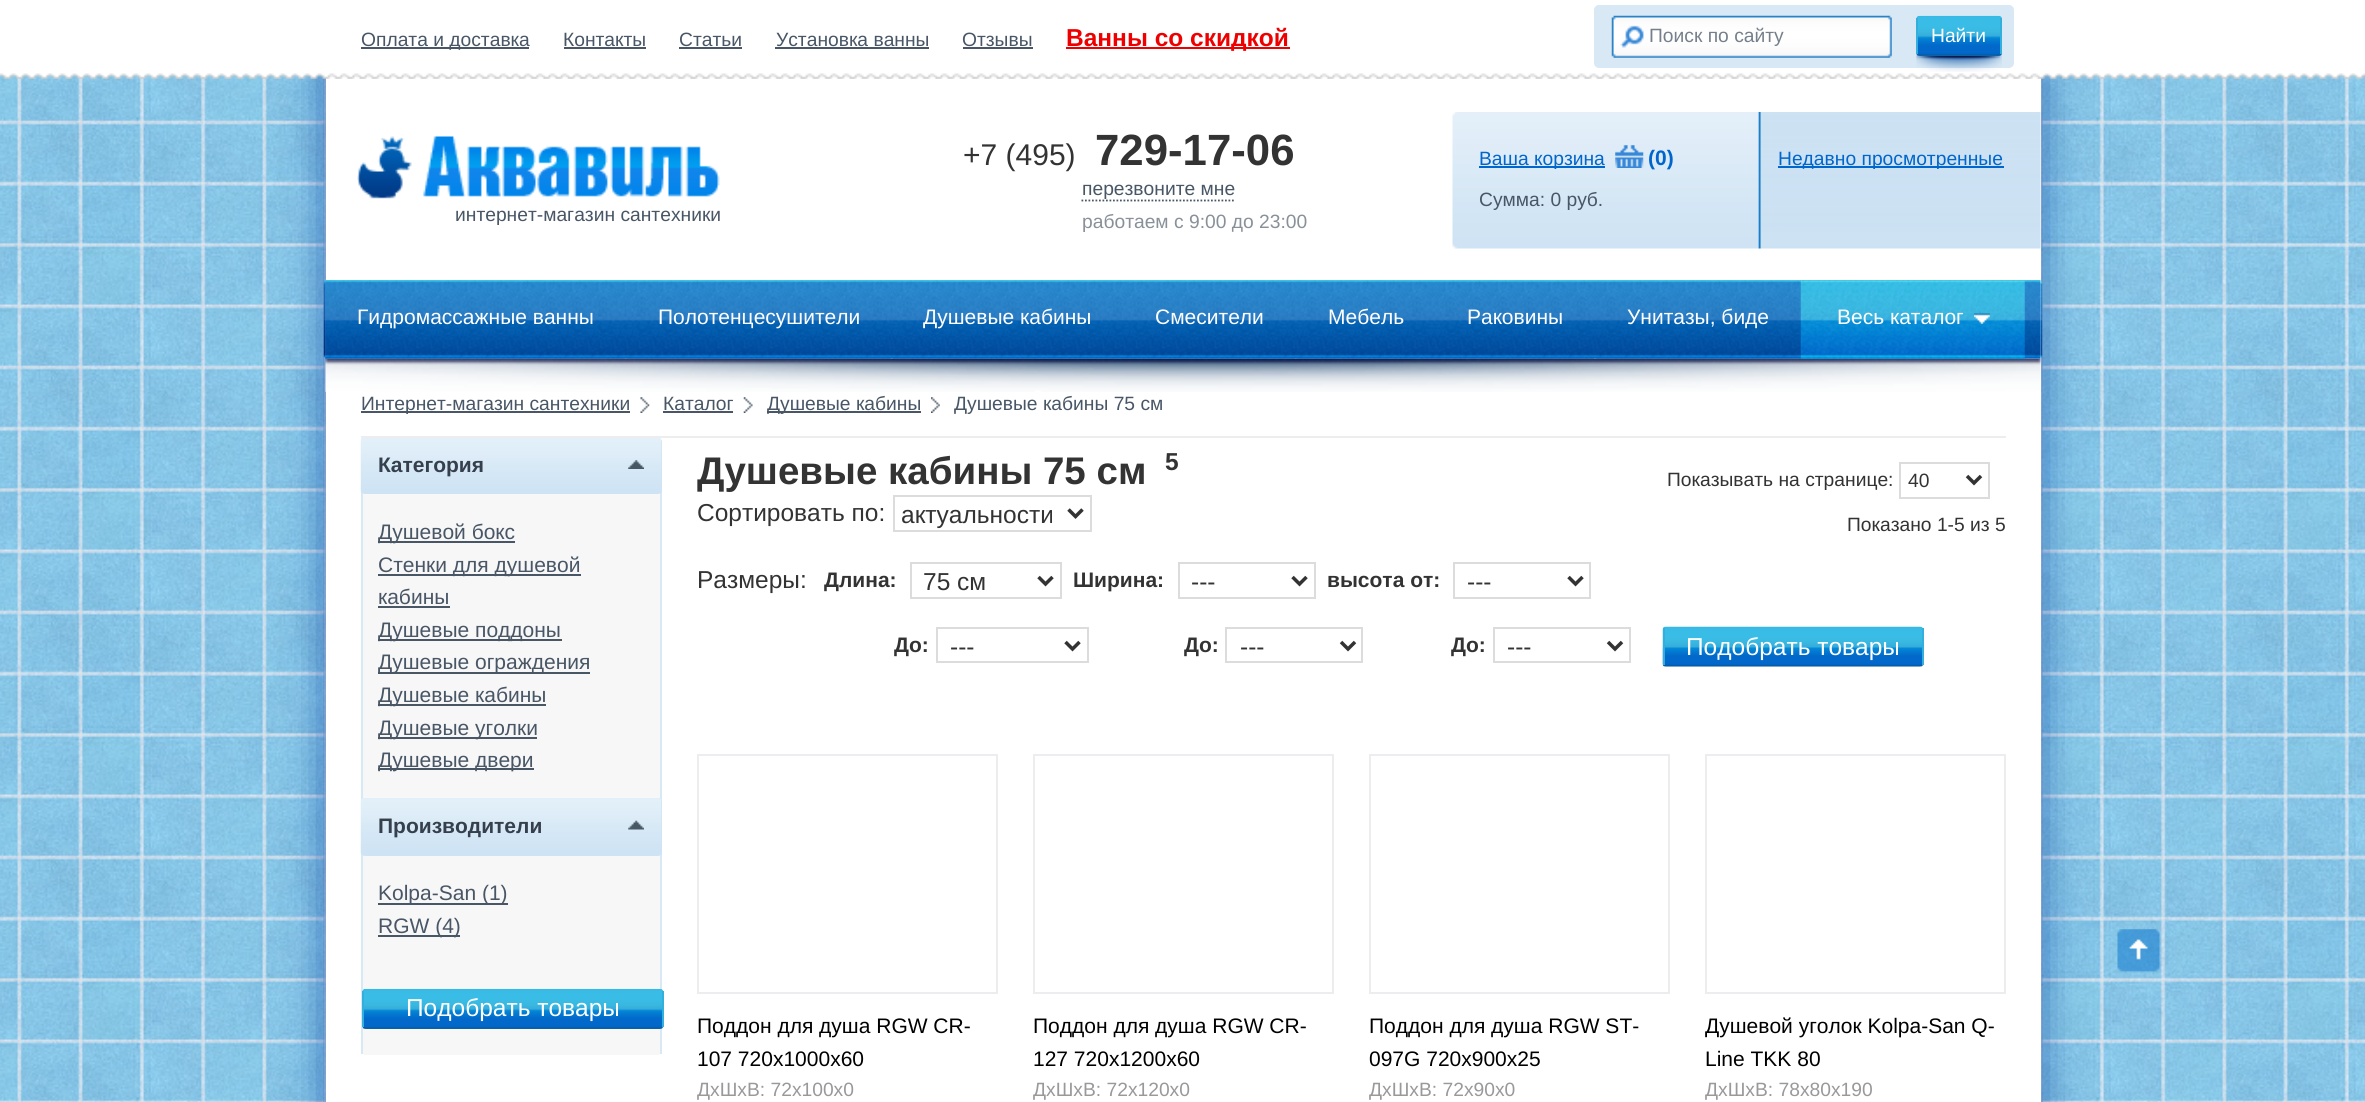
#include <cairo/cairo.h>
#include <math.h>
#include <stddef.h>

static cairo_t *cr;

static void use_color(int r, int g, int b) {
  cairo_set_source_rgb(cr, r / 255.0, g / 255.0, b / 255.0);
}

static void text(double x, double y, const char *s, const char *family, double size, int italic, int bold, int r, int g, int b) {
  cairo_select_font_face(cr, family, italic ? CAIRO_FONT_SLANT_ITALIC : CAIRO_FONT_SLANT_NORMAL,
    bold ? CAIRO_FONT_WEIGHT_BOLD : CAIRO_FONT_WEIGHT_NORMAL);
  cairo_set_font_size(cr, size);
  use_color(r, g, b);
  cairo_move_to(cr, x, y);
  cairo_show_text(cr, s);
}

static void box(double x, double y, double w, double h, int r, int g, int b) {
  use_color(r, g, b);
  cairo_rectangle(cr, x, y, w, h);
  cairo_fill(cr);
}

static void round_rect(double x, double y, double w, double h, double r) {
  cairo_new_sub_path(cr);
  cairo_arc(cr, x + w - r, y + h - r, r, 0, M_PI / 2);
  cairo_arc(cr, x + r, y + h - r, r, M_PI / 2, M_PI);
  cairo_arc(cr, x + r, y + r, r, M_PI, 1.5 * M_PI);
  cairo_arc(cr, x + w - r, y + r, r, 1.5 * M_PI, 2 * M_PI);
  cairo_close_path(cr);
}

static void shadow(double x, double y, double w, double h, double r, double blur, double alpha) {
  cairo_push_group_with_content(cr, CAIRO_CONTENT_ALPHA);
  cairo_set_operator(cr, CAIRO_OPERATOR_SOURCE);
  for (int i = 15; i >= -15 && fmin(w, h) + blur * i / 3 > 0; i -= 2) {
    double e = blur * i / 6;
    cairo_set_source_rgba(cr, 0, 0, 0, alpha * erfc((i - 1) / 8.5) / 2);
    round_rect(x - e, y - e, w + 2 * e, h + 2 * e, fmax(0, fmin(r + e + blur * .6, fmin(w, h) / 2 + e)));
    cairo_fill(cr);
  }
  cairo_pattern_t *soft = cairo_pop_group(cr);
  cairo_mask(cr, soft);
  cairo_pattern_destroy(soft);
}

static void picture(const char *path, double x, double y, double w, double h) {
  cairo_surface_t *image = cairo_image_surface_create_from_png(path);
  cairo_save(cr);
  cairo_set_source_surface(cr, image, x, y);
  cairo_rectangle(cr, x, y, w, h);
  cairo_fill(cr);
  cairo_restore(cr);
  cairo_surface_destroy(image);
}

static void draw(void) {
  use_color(255, 255, 255);
  cairo_paint(cr);
  picture("img_01.png", 0, 74, 2365, 1028);
  use_color(0, 59, 160);
  shadow(334, 9, 1698, 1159, 0, 22, 1);
  box(326, 74, 1715, 1028, 255, 255, 255);
  picture("img_02.png", 0, 0, 2365, 79);
  box(361, 47, 168, 2, 72, 86, 102);
  box(564, 47, 82, 2, 72, 86, 102);
  box(679, 47, 63, 2, 72, 86, 102);
  box(775, 47, 154, 2, 72, 86, 102);
  box(963, 47, 70, 2, 72, 86, 102);
  box(1066, 47, 224, 2, 238, 0, 0);
  use_color(216, 233, 245);
  round_rect(1594, 5, 420, 63, 5);
  cairo_fill(cr);
  picture("img_03.png", 1611, 15, 281, 43);
  picture("img_04.png", 1916, 54, 86, 18);
  picture("img_05.png", 1916, 15, 86, 41);
  box(2000, 18, 2, 36, 50, 175, 221);
  box(1916, 18, 2, 36, 50, 175, 221);
  cairo_new_path(cr);
  cairo_move_to(cr, 1081.5, 200.5);
  cairo_line_to(cr, 1235.5, 200.5);
  use_color(72, 86, 102);
  cairo_set_line_width(cr, 1.8);
  cairo_set_dash(cr, (double[]){1.75, 1.75}, 2, 0);
  cairo_stroke(cr);
  picture("img_06.png", 1452, 112, 589, 137);
  box(1479, 166, 126, 2, 0, 102, 204);
  picture("img_07.png", 1615, 145, 29, 23);
  box(1778, 166, 226, 2, 0, 102, 204);
  picture("img_08.png", 357, 136, 363, 63);
  picture("img_09.png", 325, 358, 1716, 34);
  picture("img_11.png", 325, 280, 1716, 79);
  picture("img_10.png", 323, 281, 3, 77);
  picture("img_12.png", 325, 280, 300, 79);
  picture("img_13.png", 626, 280, 265, 79);
  picture("img_14.png", 892, 280, 232, 79);
  picture("img_15.png", 1123, 280, 172, 79);
  picture("img_16.png", 1296, 358, 139, 1);
  picture("img_17.png", 1435, 280, 160, 79);
  picture("img_18.png", 1596, 280, 205, 79);
  picture("img_19.png", 1800, 280, 225, 79);
  picture("img_20.png", 1974, 313, 16, 11);
  picture("img_21.png", 2040, 281, 3, 77);
  box(361, 436, 1645, 2, 237, 237, 237);
  box(361, 411, 269, 2, 72, 86, 102);
  picture("img_22.png", 640, 397, 10, 16);
  box(663, 411, 70, 2, 72, 86, 102);
  picture("img_23.png", 743, 397, 10, 16);
  box(767, 411, 154, 2, 72, 86, 102);
  picture("img_24.png", 931, 397, 9, 16);
  use_color(247, 247, 247);
  round_rect(361, 438, 301, 617, 5);
  cairo_fill(cr);
  box(660, 441, 2, 613, 215, 233, 245);
  box(361, 492, 2, 562, 215, 233, 245);
  use_color(206, 227, 244);
  round_rect(361, 438, 301, 56, 4);
  cairo_fill(cr);
  picture("img_25.png", 360, 438, 302, 55);
  picture("img_26.png", 628, 460, 16, 9);
  box(378, 541, 137, 2, 72, 86, 102);
  box(378, 574, 203, 2, 72, 86, 102);
  box(378, 606, 72, 2, 72, 86, 102);
  box(378, 639, 184, 2, 72, 86, 102);
  box(378, 672, 212, 2, 72, 86, 102);
  box(378, 704, 168, 2, 72, 86, 102);
  box(378, 737, 159, 2, 72, 86, 102);
  box(378, 768, 156, 2, 72, 86, 102);
  use_color(206, 227, 244);
  round_rect(361, 798, 301, 58, 4);
  cairo_fill(cr);
  picture("img_27.png", 360, 798, 302, 56);
  picture("img_28.png", 628, 820, 16, 10);
  box(378, 903, 130, 2, 72, 86, 102);
  box(378, 935, 82, 2, 72, 86, 102);
  picture("img_29.png", 362, 988, 301, 41);
  box(662, 991, 2, 36, 50, 175, 221);
  box(362, 991, 2, 36, 50, 175, 221);
  cairo_rectangle(cr, 1900, 463, 89, 35);
  use_color(220, 220, 220);
  cairo_set_line_width(cr, 2);
  cairo_set_dash(cr, NULL, 0, 0);
  cairo_stroke(cr);
  cairo_new_path(cr);
  cairo_move_to(cr, 1967, 476);
  cairo_line_to(cr, 1974, 483);
  cairo_line_to(cr, 1981, 476);
  use_color(51, 51, 51);
  cairo_set_line_width(cr, 3.5);
  cairo_stroke(cr);
  cairo_rectangle(cr, 894, 496, 197, 35);
  use_color(220, 220, 220);
  cairo_set_line_width(cr, 2);
  cairo_stroke(cr);
  cairo_new_path(cr);
  cairo_move_to(cr, 1068.5, 509.5);
  cairo_line_to(cr, 1075.5, 516.5);
  cairo_line_to(cr, 1082.5, 509.5);
  use_color(51, 51, 51);
  cairo_set_line_width(cr, 3.5);
  cairo_stroke(cr);
  cairo_rectangle(cr, 911, 563, 150, 35);
  use_color(220, 220, 220);
  cairo_set_line_width(cr, 2);
  cairo_stroke(cr);
  cairo_new_path(cr);
  cairo_move_to(cr, 1038.5, 577);
  cairo_line_to(cr, 1045.5, 584);
  cairo_line_to(cr, 1052.5, 577);
  use_color(51, 51, 51);
  cairo_set_line_width(cr, 3.5);
  cairo_stroke(cr);
  cairo_rectangle(cr, 1179, 563, 136, 35);
  use_color(220, 220, 220);
  cairo_set_line_width(cr, 2);
  cairo_stroke(cr);
  cairo_new_path(cr);
  cairo_move_to(cr, 1292.5, 577);
  cairo_line_to(cr, 1299.5, 584);
  cairo_line_to(cr, 1306.5, 577);
  use_color(51, 51, 51);
  cairo_set_line_width(cr, 3.5);
  cairo_stroke(cr);
  cairo_rectangle(cr, 1454, 563, 136, 35);
  use_color(220, 220, 220);
  cairo_set_line_width(cr, 2);
  cairo_stroke(cr);
  cairo_new_path(cr);
  cairo_move_to(cr, 1568.5, 577);
  cairo_line_to(cr, 1575.5, 584);
  cairo_line_to(cr, 1582.5, 577);
  use_color(51, 51, 51);
  cairo_set_line_width(cr, 3.5);
  cairo_stroke(cr);
  cairo_rectangle(cr, 937, 628, 151, 34);
  use_color(220, 220, 220);
  cairo_set_line_width(cr, 2);
  cairo_stroke(cr);
  cairo_new_path(cr);
  cairo_move_to(cr, 1065.5, 642);
  cairo_line_to(cr, 1072.5, 649);
  cairo_line_to(cr, 1079.5, 642);
  use_color(51, 51, 51);
  cairo_set_line_width(cr, 3.5);
  cairo_stroke(cr);
  cairo_rectangle(cr, 1226, 628, 136, 34);
  use_color(220, 220, 220);
  cairo_set_line_width(cr, 2);
  cairo_stroke(cr);
  cairo_new_path(cr);
  cairo_move_to(cr, 1341, 642);
  cairo_line_to(cr, 1348, 649);
  cairo_line_to(cr, 1355, 642);
  use_color(51, 51, 51);
  cairo_set_line_width(cr, 3.5);
  cairo_stroke(cr);
  cairo_rectangle(cr, 1494, 628, 136, 34);
  use_color(220, 220, 220);
  cairo_set_line_width(cr, 2);
  cairo_stroke(cr);
  cairo_new_path(cr);
  cairo_move_to(cr, 1608, 642);
  cairo_line_to(cr, 1615, 649);
  cairo_line_to(cr, 1622, 642);
  use_color(51, 51, 51);
  cairo_set_line_width(cr, 3.5);
  cairo_stroke(cr);
  picture("img_30.png", 1662, 626, 261, 41);
  box(1922, 628, 2, 37, 50, 175, 221);
  box(1663, 628, 2, 37, 50, 175, 221);
  cairo_rectangle(cr, 698, 755, 299, 238);
  use_color(237, 237, 239);
  cairo_set_line_width(cr, 2);
  cairo_stroke(cr);
  cairo_rectangle(cr, 1034, 755, 299, 238);
  cairo_stroke(cr);
  cairo_rectangle(cr, 1370, 755, 299, 238);
  cairo_stroke(cr);
  cairo_rectangle(cr, 1706, 755, 299, 238);
  cairo_stroke(cr);
  picture("img_31.png", 2117, 929, 43, 43);
  text(361, 46, "Оплата и доставка", "Liberation Sans", 19.25, 0, 0, 72, 86, 102);
  text(563, 46, "Контакты", "Liberation Sans", 19.25, 0, 0, 72, 86, 102);
  text(679, 46, "Статьи", "Liberation Sans", 19.25, 0, 0, 72, 86, 102);
  text(776, 46, "Установка ванны", "Liberation Sans", 19.25, 0, 0, 72, 86, 102);
  text(962, 46, "Отзывы", "Liberation Sans", 19.25, 0, 0, 72, 86, 102);
  text(1066, 46, "Ванны со скидкой", "Liberation Sans", 24.5, 0, 1, 238, 0, 0);
  text(1649, 42, "Поиск по сайту", "Liberation Sans", 19.25, 0, 0, 117, 128, 140);
  text(1931, 42, "Найти", "Liberation Sans", 19.25, 0, 0, 255, 255, 255);
  text(963, 165, "+7 (495)", "Liberation Sans", 30, 0, 0, 51, 51, 51);
  text(1095, 165, "729-17-06", "Liberation Sans", 43.75, 0, 1, 51, 51, 51);
  text(1082, 195, "перезвоните мне", "Liberation Sans", 19.25, 0, 0, 72, 86, 102);
  text(1082, 228, "работаем с 9:00 до 23:00", "Liberation Sans", 19.25, 0, 0, 136, 144, 153);
  text(1479, 165, "Ваша корзина", "Liberation Sans", 19.25, 0, 0, 0, 102, 204);
  text(1648, 165, "(0)", "Liberation Sans", 21, 0, 1, 0, 102, 204);
  text(1479, 206, "Сумма: 0 руб.", "Liberation Sans", 19.25, 0, 0, 72, 86, 102);
  text(1778, 165, "Недавно просмотренные", "Liberation Sans", 19.25, 0, 0, 0, 102, 204);
  text(455, 221, "интернет-магазин сантехники", "Liberation Sans", 19.25, 0, 0, 72, 86, 102);
  text(357, 324, "Гидромассажные ванны", "Liberation Sans", 21, 0, 0, 255, 255, 255);
  text(658, 324, "Полотенцесушители", "Liberation Sans", 21, 0, 0, 255, 255, 255);
  text(923, 324, "Душевые кабины", "Liberation Sans", 21, 0, 0, 255, 255, 255);
  text(1155, 324, "Смесители", "Liberation Sans", 21, 0, 0, 255, 255, 255);
  text(1328, 324, "Мебель", "Liberation Sans", 21, 0, 0, 255, 255, 255);
  text(1467, 324, "Раковины", "Liberation Sans", 21, 0, 0, 255, 255, 255);
  text(1627, 324, "Унитазы, биде", "Liberation Sans", 21, 0, 0, 255, 255, 255);
  text(1837, 324, "Весь каталог", "Liberation Sans", 21, 0, 0, 255, 255, 255);
  text(361, 410, "Интернет-магазин сантехники", "Liberation Sans", 19.25, 0, 0, 72, 86, 102);
  text(663, 410, "Каталог", "Liberation Sans", 19.25, 0, 0, 72, 86, 102);
  text(767, 410, "Душевые кабины", "Liberation Sans", 19.25, 0, 0, 72, 86, 102);
  text(954, 410, "Душевые кабины 75 см", "Liberation Sans", 19.25, 0, 0, 72, 86, 102);
  text(378, 472, "Категория", "Liberation Sans", 21, 0, 1, 54, 64, 77);
  text(378, 539, "Душевой бокс", "Liberation Sans", 21, 0, 0, 72, 86, 102);
  text(378, 572, "Стенки для душевой", "Liberation Sans", 21, 0, 0, 72, 86, 102);
  text(378, 604, "кабины", "Liberation Sans", 21, 0, 0, 72, 86, 102);
  text(378, 637, "Душевые поддоны", "Liberation Sans", 21, 0, 0, 72, 86, 102);
  text(378, 669, "Душевые ограждения", "Liberation Sans", 21, 0, 0, 72, 86, 102);
  text(378, 702, "Душевые кабины", "Liberation Sans", 21, 0, 0, 72, 86, 102);
  text(378, 735, "Душевые уголки", "Liberation Sans", 21, 0, 0, 72, 86, 102);
  text(378, 767, "Душевые двери", "Liberation Sans", 21, 0, 0, 72, 86, 102);
  text(378, 833, "Производители", "Liberation Sans", 21, 0, 1, 54, 64, 77);
  text(378, 900, "Kolpa-San (1)", "Liberation Sans", 21, 0, 0, 72, 86, 102);
  text(378, 933, "RGW (4)", "Liberation Sans", 21, 0, 0, 72, 86, 102);
  text(406, 1016, "Подобрать товары", "Liberation Sans", 24.5, 0, 0, 255, 255, 255);
  text(697, 484, "Душевые кабины 75 см", "Liberation Sans", 38.5, 0, 1, 51, 51, 51);
  text(1165, 470, "5", "Liberation Sans", 24.5, 0, 1, 51, 51, 51);
  text(1667, 486, "Показывать на странице:", "Liberation Sans", 19.25, 0, 0, 51, 51, 51);
  text(1908, 487, "40", "Liberation Sans", 19.25, 0, 0, 51, 51, 51);
  text(1847, 531, "Показано 1-5 из 5", "Liberation Sans", 19.25, 0, 0, 51, 51, 51);
  text(697, 521, "Сортировать по:", "Liberation Sans", 24.5, 0, 0, 51, 51, 51);
  text(901, 523, "актуальности", "Liberation Sans", 24.5, 0, 0, 51, 51, 51);
  text(697, 588, "Размеры:", "Liberation Sans", 24.5, 0, 0, 51, 51, 51);
  text(824, 587, "Длина:", "Liberation Sans", 21, 0, 1, 51, 51, 51);
  text(923, 590, "75 см", "Liberation Sans", 24.5, 0, 0, 51, 51, 51);
  text(1073, 587, "Ширина:", "Liberation Sans", 21, 0, 1, 51, 51, 51);
  text(1191, 590, "---", "Liberation Sans", 24.5, 0, 0, 51, 51, 51);
  text(1327, 587, "высота от:", "Liberation Sans", 21, 0, 1, 51, 51, 51);
  text(1467, 590, "---", "Liberation Sans", 24.5, 0, 0, 51, 51, 51);
  text(894, 652, "До:", "Liberation Sans", 21, 0, 1, 51, 51, 51);
  text(950, 655, "---", "Liberation Sans", 24.5, 0, 0, 51, 51, 51);
  text(1184, 652, "До:", "Liberation Sans", 21, 0, 1, 51, 51, 51);
  text(1240, 655, "---", "Liberation Sans", 24.5, 0, 0, 51, 51, 51);
  text(1451, 652, "До:", "Liberation Sans", 21, 0, 1, 51, 51, 51);
  text(1507, 655, "---", "Liberation Sans", 24.5, 0, 0, 51, 51, 51);
  text(1686, 655, "Подобрать товары", "Liberation Sans", 24.5, 0, 0, 255, 255, 255);
  text(697, 1033, "Поддон для душа RGW CR-", "Liberation Sans", 21, 0, 0, 0, 0, 0);
  text(697, 1066, "107 720х1000х60", "Liberation Sans", 21, 0, 0, 0, 0, 0);
  text(697, 1096, "ДхШхВ: 72х100х0", "Liberation Sans", 19.25, 0, 0, 153, 153, 153);
  text(1033, 1033, "Поддон для душа RGW CR-", "Liberation Sans", 21, 0, 0, 0, 0, 0);
  text(1033, 1066, "127 720х1200х60", "Liberation Sans", 21, 0, 0, 0, 0, 0);
  text(1033, 1096, "ДхШхВ: 72х120х0", "Liberation Sans", 19.25, 0, 0, 153, 153, 153);
  text(1369, 1033, "Поддон для душа RGW ST-", "Liberation Sans", 21, 0, 0, 0, 0, 0);
  text(1369, 1066, "097G 720х900х25", "Liberation Sans", 21, 0, 0, 0, 0, 0);
  text(1369, 1096, "ДхШхВ: 72х90х0", "Liberation Sans", 19.25, 0, 0, 153, 153, 153);
  cairo_save(cr);
  cairo_rectangle(cr, 1705, 1010, 301, 63);
  cairo_clip(cr);
  text(1705, 1033, "Душевой уголок Kolpa-San Q-", "Liberation Sans", 21, 0, 0, 0, 0, 0);
  cairo_restore(cr);
  text(1705, 1066, "Line TKK 80", "Liberation Sans", 21, 0, 0, 0, 0, 0);
  text(1705, 1096, "ДхШхВ: 78х80х190", "Liberation Sans", 19.25, 0, 0, 153, 153, 153);
}

int main(void) {
  cairo_surface_t *surface = cairo_image_surface_create(CAIRO_FORMAT_RGB24, 2365, 1102);
  cr = cairo_create(surface);
  cairo_font_options_t *options = cairo_font_options_create();
  cairo_font_options_set_hint_metrics(options, CAIRO_HINT_METRICS_OFF);
  cairo_font_options_set_hint_style(options, CAIRO_HINT_STYLE_NONE);
  cairo_set_font_options(cr, options);
  cairo_set_miter_limit(cr, 4);
  draw();
  cairo_surface_write_to_png(surface, "out.png");
  cairo_font_options_destroy(options);
  cairo_destroy(cr);
  cairo_surface_destroy(surface);
  return 0;
}
